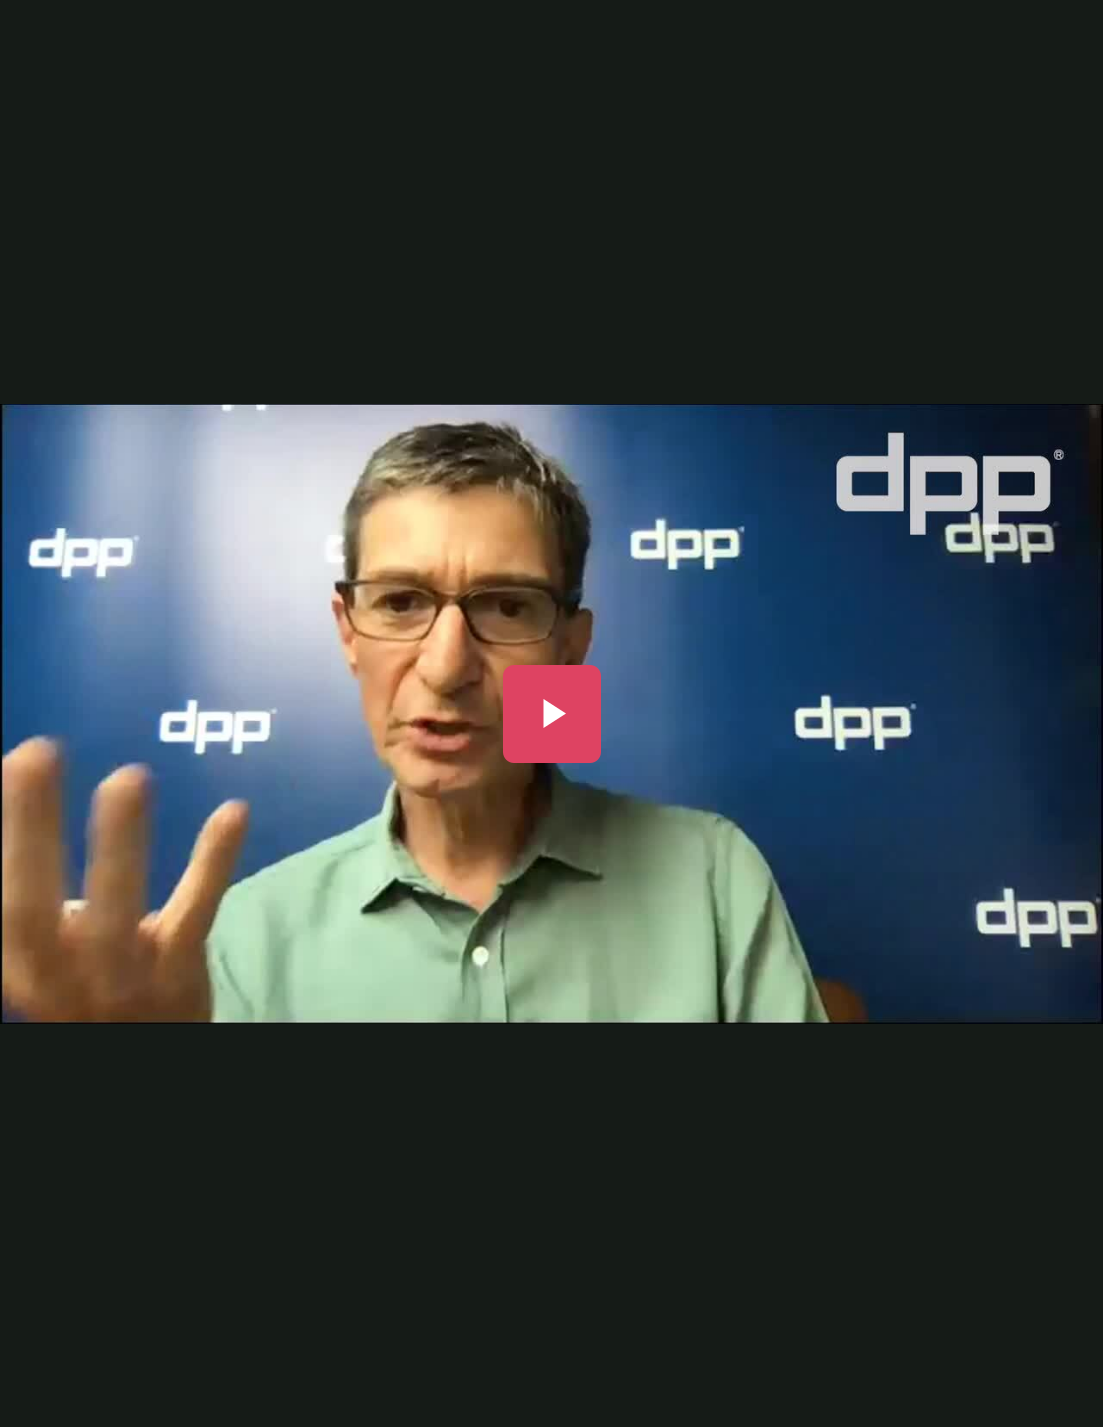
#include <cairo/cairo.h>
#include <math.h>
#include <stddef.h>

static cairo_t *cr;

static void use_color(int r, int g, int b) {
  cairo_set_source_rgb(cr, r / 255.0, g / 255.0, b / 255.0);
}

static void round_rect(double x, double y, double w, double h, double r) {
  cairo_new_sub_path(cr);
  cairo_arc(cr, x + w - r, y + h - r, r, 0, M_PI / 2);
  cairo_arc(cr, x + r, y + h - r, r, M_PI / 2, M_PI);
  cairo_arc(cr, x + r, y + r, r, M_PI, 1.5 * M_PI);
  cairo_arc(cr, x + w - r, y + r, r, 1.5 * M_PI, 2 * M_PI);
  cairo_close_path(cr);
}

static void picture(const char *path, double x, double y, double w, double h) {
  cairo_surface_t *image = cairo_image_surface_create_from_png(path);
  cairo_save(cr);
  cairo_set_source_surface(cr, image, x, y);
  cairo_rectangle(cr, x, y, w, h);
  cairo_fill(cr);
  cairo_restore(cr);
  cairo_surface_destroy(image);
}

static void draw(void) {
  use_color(21, 27, 23);
  cairo_paint(cr);
  picture("img_01.png", 0, 404, 1103, 620);
  use_color(222, 67, 98);
  round_rect(503, 665, 98, 98, 11);
  cairo_fill(cr);
  use_color(255, 255, 255);
  cairo_new_path(cr);
  cairo_move_to(cr, 543.5, 699);
  cairo_line_to(cr, 543.5, 728);
  cairo_line_to(cr, 566, 713.5);
  cairo_close_path(cr);
  cairo_fill(cr);
}

int main(void) {
  cairo_surface_t *surface = cairo_image_surface_create(CAIRO_FORMAT_RGB24, 1103, 1427);
  cr = cairo_create(surface);
  cairo_font_options_t *options = cairo_font_options_create();
  cairo_font_options_set_hint_metrics(options, CAIRO_HINT_METRICS_OFF);
  cairo_font_options_set_hint_style(options, CAIRO_HINT_STYLE_NONE);
  cairo_set_font_options(cr, options);
  cairo_set_miter_limit(cr, 4);
  draw();
  cairo_surface_write_to_png(surface, "out.png");
  cairo_font_options_destroy(options);
  cairo_destroy(cr);
  cairo_surface_destroy(surface);
  return 0;
}
